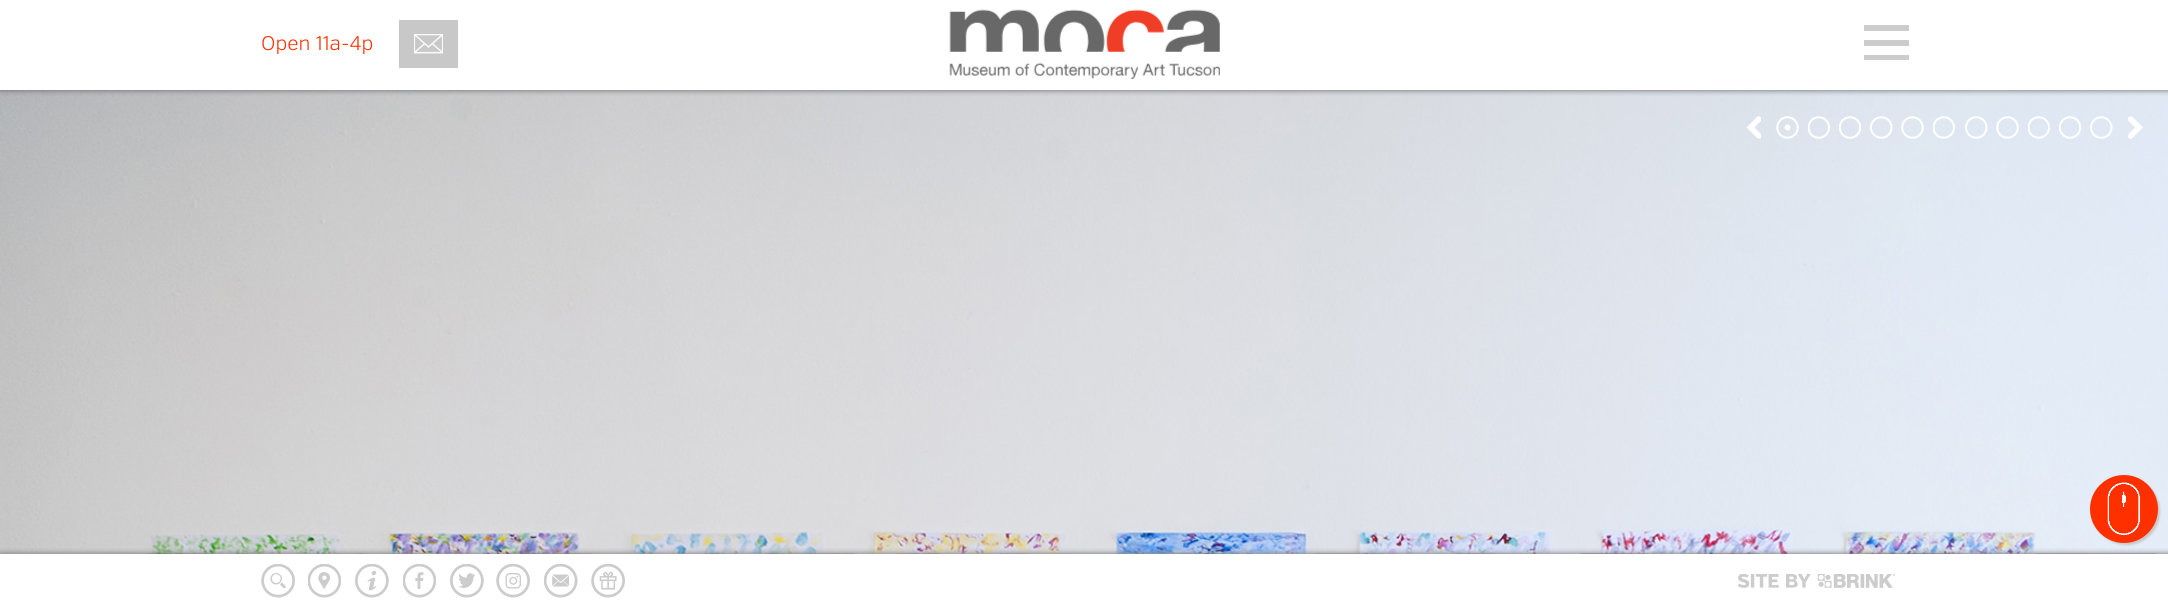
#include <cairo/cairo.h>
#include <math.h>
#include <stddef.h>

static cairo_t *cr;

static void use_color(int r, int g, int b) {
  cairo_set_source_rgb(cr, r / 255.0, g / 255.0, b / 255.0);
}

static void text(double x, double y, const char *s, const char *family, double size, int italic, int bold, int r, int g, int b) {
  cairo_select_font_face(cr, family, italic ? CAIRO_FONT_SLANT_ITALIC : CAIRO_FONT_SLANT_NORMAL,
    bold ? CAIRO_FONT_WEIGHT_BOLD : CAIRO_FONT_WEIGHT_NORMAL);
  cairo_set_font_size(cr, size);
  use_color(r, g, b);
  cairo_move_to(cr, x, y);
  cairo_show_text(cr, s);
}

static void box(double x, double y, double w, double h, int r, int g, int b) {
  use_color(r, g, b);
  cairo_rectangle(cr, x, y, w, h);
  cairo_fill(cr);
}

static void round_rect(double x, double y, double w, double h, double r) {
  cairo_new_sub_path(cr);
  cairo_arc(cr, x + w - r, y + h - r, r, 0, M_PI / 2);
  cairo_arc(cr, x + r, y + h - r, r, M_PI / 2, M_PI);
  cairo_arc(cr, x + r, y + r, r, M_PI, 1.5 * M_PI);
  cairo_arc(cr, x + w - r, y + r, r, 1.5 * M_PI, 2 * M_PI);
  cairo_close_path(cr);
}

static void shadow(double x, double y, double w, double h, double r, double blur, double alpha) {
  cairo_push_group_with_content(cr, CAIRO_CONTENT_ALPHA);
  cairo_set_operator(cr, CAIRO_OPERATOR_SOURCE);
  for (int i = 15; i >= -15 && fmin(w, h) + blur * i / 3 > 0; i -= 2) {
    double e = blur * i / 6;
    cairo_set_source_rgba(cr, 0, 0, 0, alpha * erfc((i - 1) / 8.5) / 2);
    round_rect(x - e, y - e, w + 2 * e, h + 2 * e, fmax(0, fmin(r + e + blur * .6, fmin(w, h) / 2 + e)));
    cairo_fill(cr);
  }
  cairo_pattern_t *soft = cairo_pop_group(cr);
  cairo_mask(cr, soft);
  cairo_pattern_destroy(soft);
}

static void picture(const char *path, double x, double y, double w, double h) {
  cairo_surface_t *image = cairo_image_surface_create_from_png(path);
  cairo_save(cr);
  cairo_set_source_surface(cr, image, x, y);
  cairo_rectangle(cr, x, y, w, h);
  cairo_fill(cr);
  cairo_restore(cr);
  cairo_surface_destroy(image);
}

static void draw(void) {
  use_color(255, 255, 255);
  cairo_paint(cr);
  picture("img_04.png", 0, 553, 2168, 1);
  picture("img_05.png", 0, 553, 2168, 1);
  picture("img_06.png", 0, 553, 2168, 1);
  picture("img_07.png", 0, 553, 2168, 1);
  picture("img_08.png", 0, 553, 2168, 1);
  picture("img_09.png", 0, 553, 2168, 1);
  picture("img_04.png", 0, 553, 2168, 1);
  picture("img_10.png", 0, 553, 2168, 1);
  picture("img_11.png", 0, 553, 2168, 1);
  picture("img_12.png", 0, 553, 2168, 1);
  picture("img_03.png", 0, 90, 2168, 464);
  cairo_save(cr);
  cairo_rectangle(cr, 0, 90, 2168, 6);
  cairo_clip(cr);
  use_color(102, 102, 102);
  shadow(0, 0, 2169, 90, 0, 3, 1);
  cairo_restore(cr);
  box(399, 20, 59, 48, 200, 200, 200);
  picture("img_01.png", 414, 34, 29, 20);
  picture("img_02.png", 949, 9, 271, 70);
  cairo_save(cr);
  cairo_rectangle(cr, 1864, 25, 45, 35);
  cairo_clip(cr);
  use_color(205, 204, 204);
  cairo_new_path(cr);
  cairo_move_to(cr, 1909, 46);
  cairo_line_to(cr, 1864, 46);
  cairo_line_to(cr, 1864, 40);
  cairo_line_to(cr, 1909, 40);
  cairo_close_path(cr);
  cairo_move_to(cr, 1909, 25);
  cairo_line_to(cr, 1864, 25);
  cairo_line_to(cr, 1864, 31);
  cairo_line_to(cr, 1909, 31);
  cairo_close_path(cr);
  cairo_move_to(cr, 1909, 55);
  cairo_line_to(cr, 1864, 55);
  cairo_line_to(cr, 1864, 61);
  cairo_line_to(cr, 1909, 61);
  cairo_close_path(cr);
  cairo_fill(cr);
  cairo_restore(cr);
  picture("img_13.png", 1746, 116, 15, 23);
  picture("img_14.png", 1776, 116, 23, 23);
  picture("img_15.png", 1808, 116, 22, 23);
  picture("img_16.png", 1839, 116, 22, 23);
  picture("img_17.png", 1870, 116, 23, 23);
  picture("img_18.png", 1901, 116, 23, 23);
  picture("img_19.png", 1933, 116, 22, 23);
  picture("img_20.png", 1965, 116, 23, 23);
  picture("img_21.png", 1996, 116, 23, 23);
  picture("img_22.png", 2028, 116, 22, 23);
  picture("img_23.png", 2059, 116, 22, 23);
  picture("img_24.png", 2090, 116, 23, 23);
  picture("img_25.png", 2128, 116, 15, 23);
  use_color(200, 200, 200);
  shadow(2093, 478, 67, 67, 33.5, 1, 1);
  use_color(255, 48, 0);
  cairo_arc(cr, 2124, 509, 34, 0, 2 * M_PI);
  cairo_fill(cr);
  picture("img_26.png", 2107, 482, 34, 53);
  cairo_save(cr);
  cairo_rectangle(cr, 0, 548, 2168, 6);
  cairo_clip(cr);
  use_color(102, 102, 102);
  shadow(0, 554, 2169, 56, 0, 3, 1);
  cairo_restore(cr);
  picture("img_27.png", 261, 564, 34, 34);
  picture("img_28.png", 308, 564, 33, 34);
  picture("img_29.png", 355, 564, 34, 34);
  picture("img_30.png", 403, 564, 33, 34);
  picture("img_31.png", 450, 564, 34, 34);
  picture("img_32.png", 496, 564, 34, 34);
  picture("img_33.png", 544, 564, 34, 34);
  picture("img_34.png", 591, 564, 34, 34);
  picture("img_35.png", 1738, 574, 157, 14);
  text(261, 50, "Open 11a-4p", "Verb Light", 19.75, 0, 0, 255, 48, 0);
}

int main(void) {
  cairo_surface_t *surface = cairo_image_surface_create(CAIRO_FORMAT_RGB24, 2168, 609);
  cr = cairo_create(surface);
  cairo_font_options_t *options = cairo_font_options_create();
  cairo_font_options_set_hint_metrics(options, CAIRO_HINT_METRICS_OFF);
  cairo_font_options_set_hint_style(options, CAIRO_HINT_STYLE_NONE);
  cairo_set_font_options(cr, options);
  cairo_set_miter_limit(cr, 4);
  draw();
  cairo_surface_write_to_png(surface, "out.png");
  cairo_font_options_destroy(options);
  cairo_destroy(cr);
  cairo_surface_destroy(surface);
  return 0;
}
